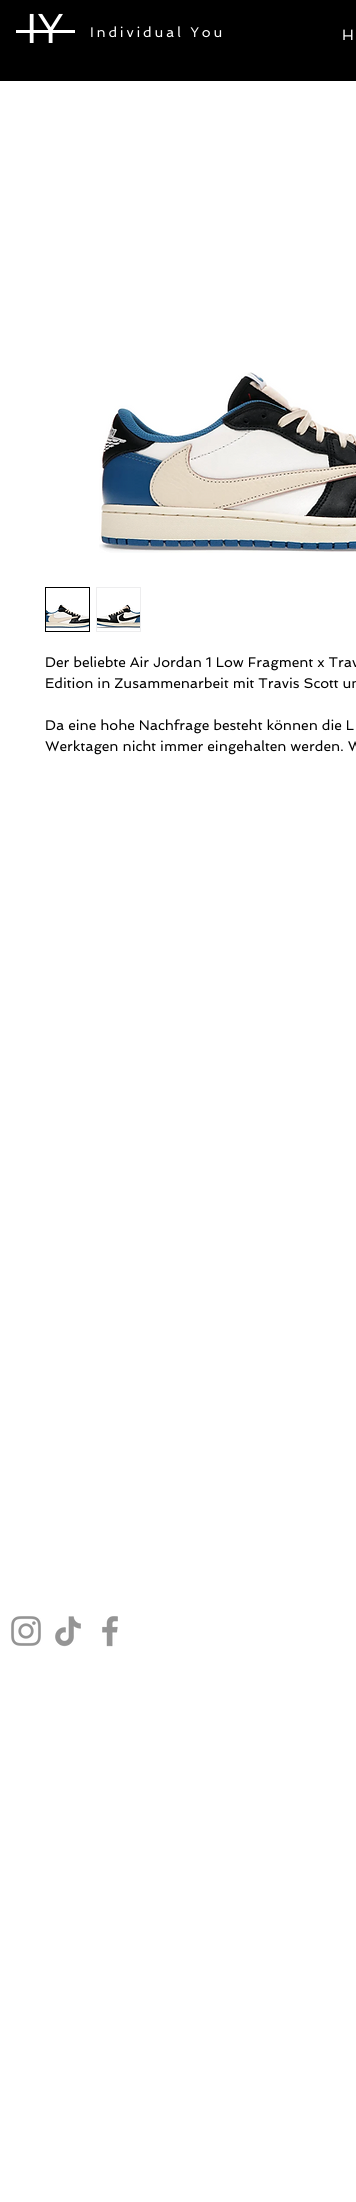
#include <cairo/cairo.h>
#include <math.h>
#include <stddef.h>

static cairo_t *cr;

static void use_color(int r, int g, int b) {
  cairo_set_source_rgb(cr, r / 255.0, g / 255.0, b / 255.0);
}

static void text(double x, double y, const char *s, const char *family, double size, int italic, int bold, int r, int g, int b) {
  cairo_select_font_face(cr, family, italic ? CAIRO_FONT_SLANT_ITALIC : CAIRO_FONT_SLANT_NORMAL,
    bold ? CAIRO_FONT_WEIGHT_BOLD : CAIRO_FONT_WEIGHT_NORMAL);
  cairo_set_font_size(cr, size);
  use_color(r, g, b);
  cairo_move_to(cr, x, y);
  cairo_show_text(cr, s);
}

static void spaced_text(double x, double y, const char *s, double letter, double word) {
  cairo_move_to(cr, x, y);
  while (*s) {
    char ch[5] = {0};
    int n = 0;
    do ch[n++] = *s++; while ((*s & 0xC0) == 0x80);
    cairo_show_text(cr, ch);
    cairo_rel_move_to(cr, letter + word * (*ch == ' '), 0);
  }
}

static void box(double x, double y, double w, double h, int r, int g, int b) {
  use_color(r, g, b);
  cairo_rectangle(cr, x, y, w, h);
  cairo_fill(cr);
}

static void picture(const char *path, double x, double y, double w, double h) {
  cairo_surface_t *image = cairo_image_surface_create_from_png(path);
  cairo_save(cr);
  cairo_set_source_surface(cr, image, x, y);
  cairo_rectangle(cr, x, y, w, h);
  cairo_fill(cr);
  cairo_restore(cr);
  cairo_surface_destroy(image);
}

static void draw(void) {
  use_color(255, 255, 255);
  cairo_paint(cr);
  box(0, 0, 356, 81, 0, 0, 0);
  box(16, 30, 59, 3, 255, 255, 255);
  picture("img_01.png", 99, 372, 257, 181);
  cairo_rectangle(cr, 45.5, 587.5, 44, 44);
  use_color(0, 0, 0);
  cairo_set_line_width(cr, 1);
  cairo_stroke(cr);
  picture("img_02.png", 46, 588, 43, 43);
  box(96, 587, 45, 45, 237, 237, 238);
  picture("img_03.png", 97, 588, 43, 43);
  picture("img_04.png", 11, 1616, 30, 30);
  picture("img_05.png", 55, 1616, 26, 31);
  picture("img_06.png", 102, 1616, 16, 31);
  text(26, 43, "IY", "Spinnaker", 42, 0, 0, 255, 255, 255);
  cairo_set_font_size(cr, 14);
  spaced_text(90, 37, "Individual You", 2.75, 0);
  text(342, 40, "H", "Spinnaker", 15, 0, 0, 255, 255, 255);
  text(45, 667, "Der beliebte Air Jordan 1 Low Fragment x Trav", "Spinnaker", 14, 0, 0, 0, 0, 0);
  text(45, 688, "Edition in Zusammenarbeit mit Travis Scott un", "Spinnaker", 14, 0, 0, 0, 0, 0);
  text(45, 730, "Da eine hohe Nachfrage besteht können die L", "Spinnaker", 14, 0, 0, 0, 0, 0);
  text(45, 751, "Werktagen nicht immer eingehalten werden. W", "Spinnaker", 14, 0, 0, 0, 0, 0);
}

int main(void) {
  cairo_surface_t *surface = cairo_image_surface_create(CAIRO_FORMAT_RGB24, 356, 2202);
  cr = cairo_create(surface);
  cairo_font_options_t *options = cairo_font_options_create();
  cairo_font_options_set_hint_metrics(options, CAIRO_HINT_METRICS_OFF);
  cairo_font_options_set_hint_style(options, CAIRO_HINT_STYLE_NONE);
  cairo_set_font_options(cr, options);
  cairo_set_miter_limit(cr, 4);
  draw();
  cairo_surface_write_to_png(surface, "out.png");
  cairo_font_options_destroy(options);
  cairo_destroy(cr);
  cairo_surface_destroy(surface);
  return 0;
}
